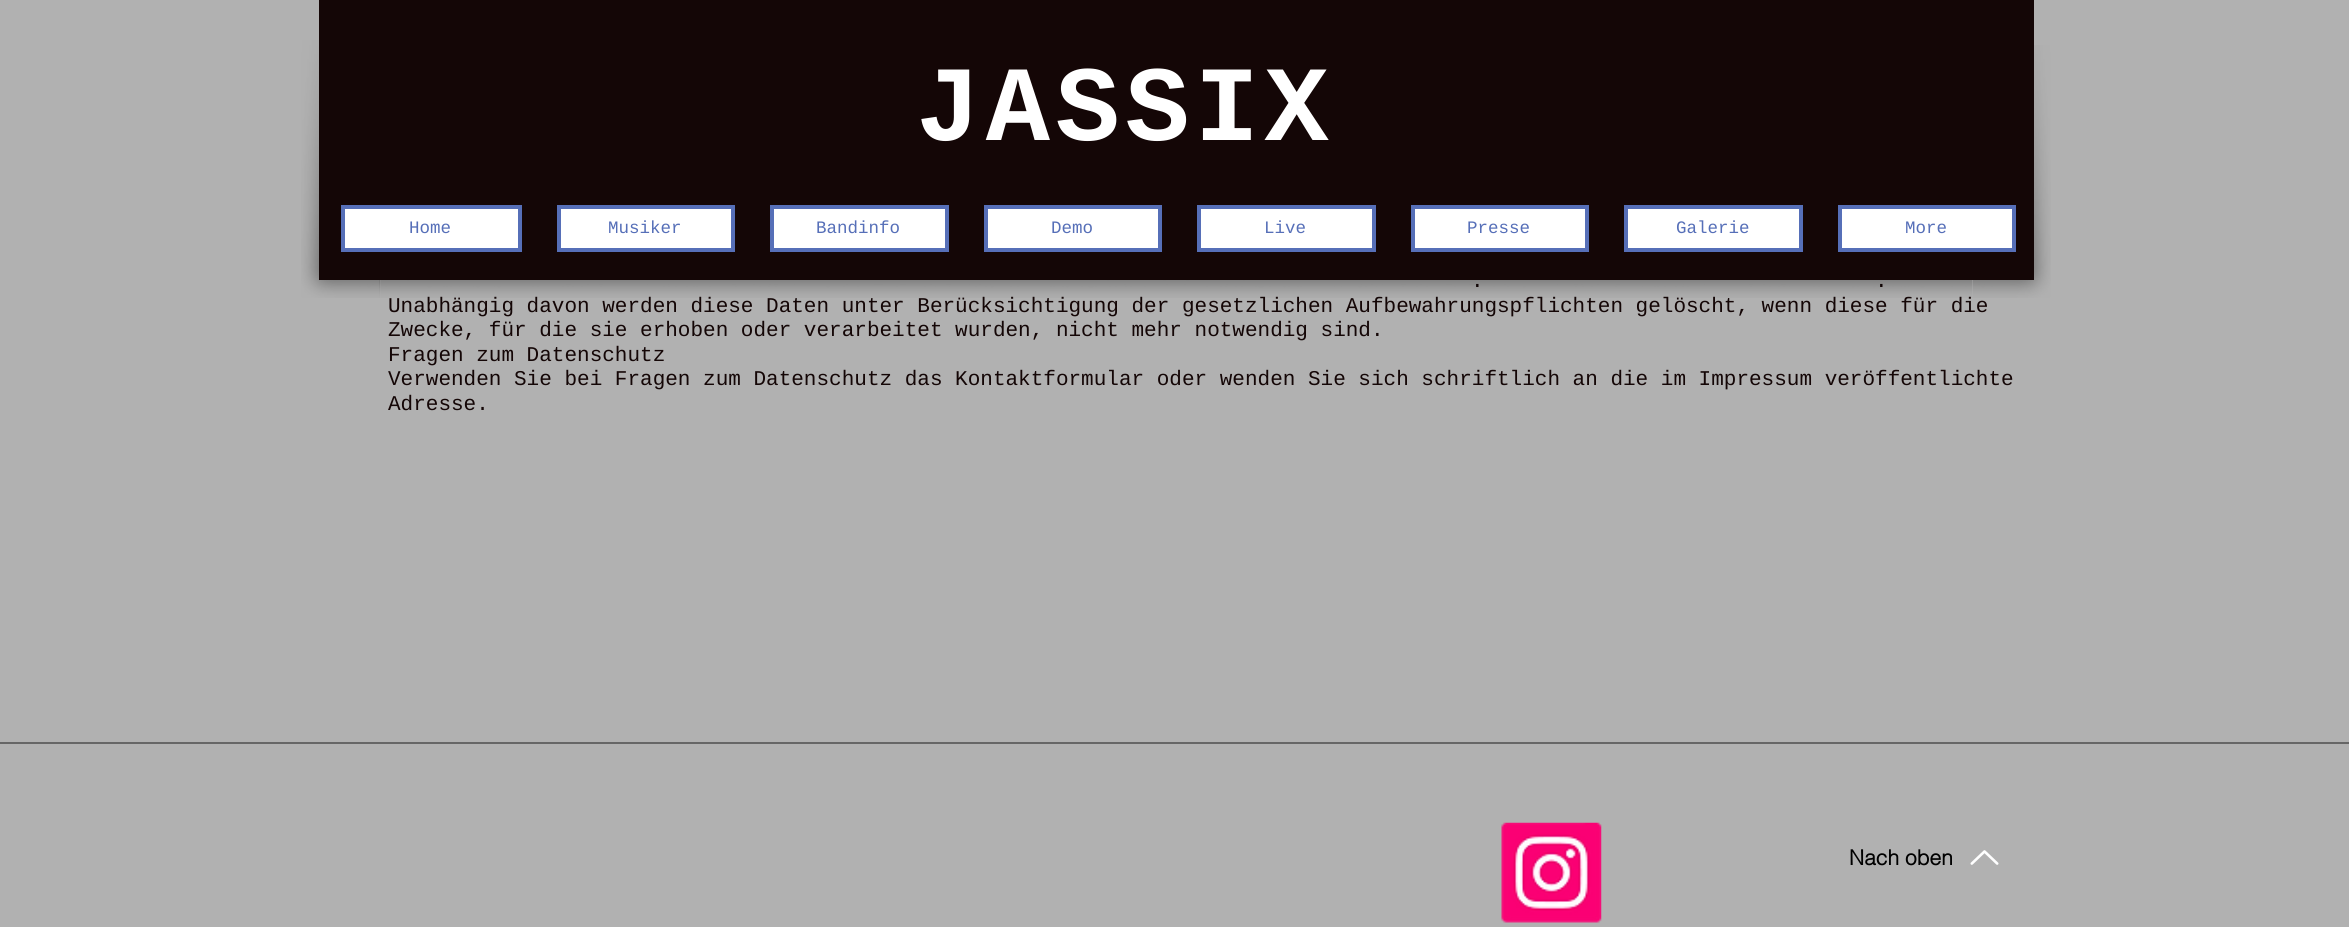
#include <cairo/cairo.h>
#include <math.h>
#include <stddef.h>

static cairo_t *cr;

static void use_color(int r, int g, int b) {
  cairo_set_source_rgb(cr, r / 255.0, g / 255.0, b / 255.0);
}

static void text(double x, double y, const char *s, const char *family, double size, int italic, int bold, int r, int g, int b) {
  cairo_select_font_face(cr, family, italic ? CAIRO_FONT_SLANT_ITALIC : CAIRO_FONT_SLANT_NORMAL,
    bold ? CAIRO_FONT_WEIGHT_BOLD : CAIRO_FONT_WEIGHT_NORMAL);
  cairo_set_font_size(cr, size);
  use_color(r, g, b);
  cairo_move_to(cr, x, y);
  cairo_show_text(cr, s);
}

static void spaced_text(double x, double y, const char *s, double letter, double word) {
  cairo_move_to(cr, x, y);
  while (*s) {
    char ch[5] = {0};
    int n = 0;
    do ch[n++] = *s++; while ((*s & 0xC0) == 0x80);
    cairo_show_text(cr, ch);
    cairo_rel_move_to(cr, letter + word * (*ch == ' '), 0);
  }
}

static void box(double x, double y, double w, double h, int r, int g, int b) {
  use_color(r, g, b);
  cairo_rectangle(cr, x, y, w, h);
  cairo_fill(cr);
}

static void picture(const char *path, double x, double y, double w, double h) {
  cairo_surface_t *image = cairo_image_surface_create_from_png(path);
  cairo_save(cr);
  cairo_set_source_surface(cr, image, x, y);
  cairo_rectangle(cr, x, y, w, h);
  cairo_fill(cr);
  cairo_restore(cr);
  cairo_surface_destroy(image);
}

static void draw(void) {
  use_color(177, 177, 177);
  cairo_paint(cr);
  picture("img_01.png", 301, 40, 79, 258);
  box(0, 742, 2349, 2, 102, 102, 102);
  picture("img_04.png", 1501, 822, 101, 101);
  picture("img_05.png", 1970, 850, 29, 15);
  text(1471, 287, ".", "Liberation Mono", 21, 0, 0, 20, 6, 6);
  text(1875, 287, ".", "Liberation Mono", 21, 0, 0, 20, 6, 6);
  text(388, 312, "Unabhängig davon werden diese Daten unter Berücksichtigung der gesetzlichen Aufbewahrungspflichten gelöscht, wenn diese für die", "Liberation Mono", 21, 0, 0, 20, 6, 6);
  picture("img_03.png", 1972, 45, 79, 253);
  box(319, 0, 1715, 280, 20, 6, 6);
  use_color(255, 255, 255);
  cairo_rectangle(cr, 1840, 207, 174, 43);
  cairo_fill_preserve(cr);
  use_color(86, 111, 184);
  cairo_set_line_width(cr, 4);
  cairo_stroke(cr);
  text(1905, 233, "More", "Liberation Mono", 17.5, 0, 0, 86, 111, 184);
  use_color(255, 255, 255);
  cairo_rectangle(cr, 1626, 207, 175, 43);
  cairo_fill_preserve(cr);
  use_color(86, 111, 184);
  cairo_stroke(cr);
  text(1676, 233, "Galerie", "Liberation Mono", 17.5, 0, 0, 86, 111, 184);
  use_color(255, 255, 255);
  cairo_rectangle(cr, 1413, 207, 174, 43);
  cairo_fill_preserve(cr);
  use_color(86, 111, 184);
  cairo_stroke(cr);
  text(1467, 233, "Presse", "Liberation Mono", 17.5, 0, 0, 86, 111, 184);
  use_color(255, 255, 255);
  cairo_rectangle(cr, 1199, 207, 175, 43);
  cairo_fill_preserve(cr);
  use_color(86, 111, 184);
  cairo_stroke(cr);
  text(1264, 233, "Live", "Liberation Mono", 17.5, 0, 0, 86, 111, 184);
  use_color(255, 255, 255);
  cairo_rectangle(cr, 986, 207, 174, 43);
  cairo_fill_preserve(cr);
  use_color(86, 111, 184);
  cairo_stroke(cr);
  text(1051, 233, "Demo", "Liberation Mono", 17.5, 0, 0, 86, 111, 184);
  use_color(255, 255, 255);
  cairo_rectangle(cr, 772, 207, 175, 43);
  cairo_fill_preserve(cr);
  use_color(86, 111, 184);
  cairo_stroke(cr);
  text(816, 233, "Bandinfo", "Liberation Mono", 17.5, 0, 0, 86, 111, 184);
  use_color(255, 255, 255);
  cairo_rectangle(cr, 559, 207, 174, 43);
  cairo_fill_preserve(cr);
  use_color(86, 111, 184);
  cairo_stroke(cr);
  text(608, 233, "Musiker", "Liberation Mono", 17.5, 0, 0, 86, 111, 184);
  use_color(255, 255, 255);
  cairo_rectangle(cr, 343, 207, 177, 43);
  cairo_fill_preserve(cr);
  use_color(86, 111, 184);
  cairo_stroke(cr);
  text(409, 233, "Home", "Liberation Mono", 17.5, 0, 0, 86, 111, 184);
  cairo_select_font_face(cr, "Liberation Mono", CAIRO_FONT_SLANT_NORMAL, CAIRO_FONT_WEIGHT_BOLD);
  cairo_set_font_size(cr, 107);
  use_color(255, 255, 255);
  spaced_text(916, 140, "JASSIX", 5.5, 0);
  picture("img_02.png", 379, 280, 1593, 18);
  text(388, 336, "Zwecke, für die sie erhoben oder verarbeitet wurden, nicht mehr notwendig sind.", "Liberation Mono", 21, 0, 0, 20, 6, 6);
  text(388, 361, "Fragen zum Datenschutz", "Liberation Mono", 21, 0, 0, 20, 6, 6);
  text(388, 385, "Verwenden Sie bei Fragen zum Datenschutz das Kontaktformular oder wenden Sie sich schriftlich an die im Impressum veröffentlichte", "Liberation Mono", 21, 0, 0, 20, 6, 6);
  text(388, 410, "Adresse.", "Liberation Mono", 21, 0, 0, 20, 6, 6);
  text(1849, 865, "Nach oben", "helvetica", 21, 0, 1, 0, 0, 0);
}

int main(void) {
  cairo_surface_t *surface = cairo_image_surface_create(CAIRO_FORMAT_RGB24, 2349, 927);
  cr = cairo_create(surface);
  cairo_font_options_t *options = cairo_font_options_create();
  cairo_font_options_set_hint_metrics(options, CAIRO_HINT_METRICS_OFF);
  cairo_font_options_set_hint_style(options, CAIRO_HINT_STYLE_NONE);
  cairo_set_font_options(cr, options);
  cairo_set_miter_limit(cr, 4);
  draw();
  cairo_surface_write_to_png(surface, "out.png");
  cairo_font_options_destroy(options);
  cairo_destroy(cr);
  cairo_surface_destroy(surface);
  return 0;
}
